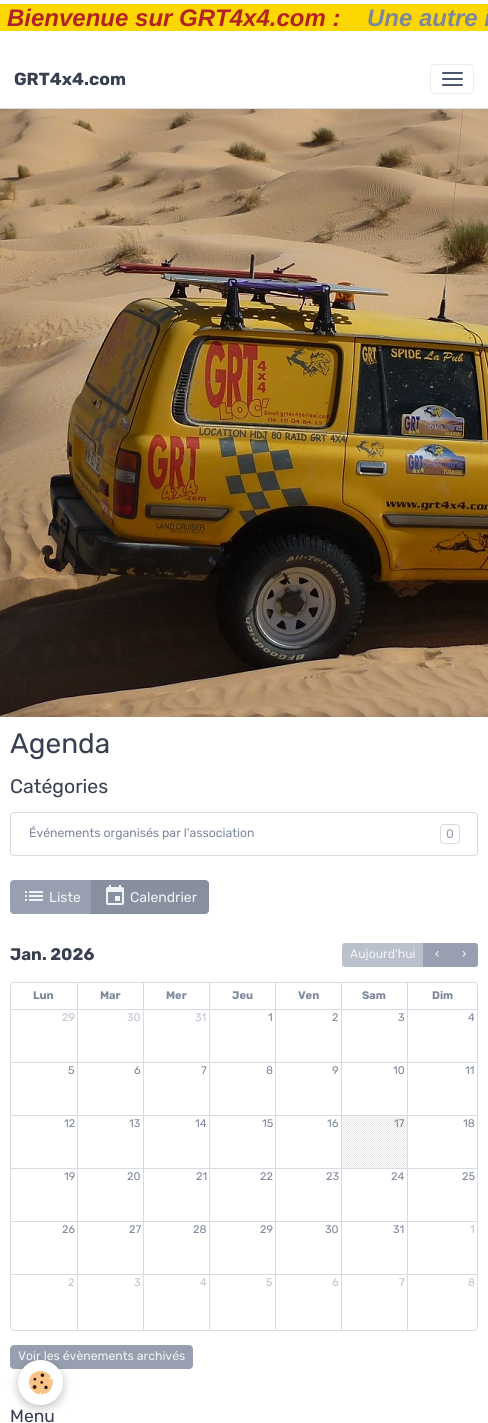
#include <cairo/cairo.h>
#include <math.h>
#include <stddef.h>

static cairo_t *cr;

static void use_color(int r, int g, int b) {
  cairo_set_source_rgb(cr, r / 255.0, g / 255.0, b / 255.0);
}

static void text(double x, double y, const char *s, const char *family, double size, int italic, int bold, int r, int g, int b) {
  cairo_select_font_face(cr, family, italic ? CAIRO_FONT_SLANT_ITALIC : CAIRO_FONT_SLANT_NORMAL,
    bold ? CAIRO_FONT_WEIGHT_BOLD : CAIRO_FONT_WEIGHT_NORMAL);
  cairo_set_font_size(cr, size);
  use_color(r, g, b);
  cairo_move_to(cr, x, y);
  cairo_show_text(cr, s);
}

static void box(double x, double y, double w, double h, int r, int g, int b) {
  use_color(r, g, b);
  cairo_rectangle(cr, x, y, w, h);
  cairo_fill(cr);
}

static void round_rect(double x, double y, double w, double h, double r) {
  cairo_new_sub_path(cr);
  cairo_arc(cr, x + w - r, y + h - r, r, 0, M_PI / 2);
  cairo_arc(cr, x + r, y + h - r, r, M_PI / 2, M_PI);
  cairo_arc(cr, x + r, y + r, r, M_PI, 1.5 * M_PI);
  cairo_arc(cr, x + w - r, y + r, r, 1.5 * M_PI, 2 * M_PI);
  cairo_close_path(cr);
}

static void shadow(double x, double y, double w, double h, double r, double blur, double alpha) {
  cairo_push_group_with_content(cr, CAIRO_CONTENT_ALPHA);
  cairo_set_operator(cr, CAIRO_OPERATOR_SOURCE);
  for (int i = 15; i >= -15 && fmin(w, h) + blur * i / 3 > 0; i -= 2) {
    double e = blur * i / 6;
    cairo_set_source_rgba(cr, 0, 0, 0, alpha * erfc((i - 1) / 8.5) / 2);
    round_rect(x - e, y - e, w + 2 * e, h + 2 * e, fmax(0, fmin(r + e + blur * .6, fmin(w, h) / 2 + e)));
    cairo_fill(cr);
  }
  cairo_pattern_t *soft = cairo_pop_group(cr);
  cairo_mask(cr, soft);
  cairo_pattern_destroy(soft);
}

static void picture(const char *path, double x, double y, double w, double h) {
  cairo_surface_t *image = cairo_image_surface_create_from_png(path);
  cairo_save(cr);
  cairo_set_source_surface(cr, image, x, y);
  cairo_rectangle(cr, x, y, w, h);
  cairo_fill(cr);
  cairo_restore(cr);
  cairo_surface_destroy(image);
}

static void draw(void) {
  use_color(255, 255, 255);
  cairo_paint(cr);
  box(0, 4, 488, 27, 255, 215, 0);
  box(0, 108, 488, 1, 219, 221, 225);
  round_rect(430.5, 64.5, 43, 29, 3.5);
  use_color(237, 238, 240);
  cairo_set_line_width(cr, 1);
  cairo_stroke(cr);
  use_color(75, 86, 107);
  round_rect(442, 72, 21, 2, 1);
  cairo_fill(cr);
  round_rect(442, 78, 21, 2, 1);
  cairo_fill(cr);
  round_rect(442, 84, 21, 2, 1);
  cairo_fill(cr);
  picture("img_01.png", 0, 109, 488, 608);
  round_rect(10.5, 812.5, 467, 43, 3.5);
  use_color(216, 219, 225);
  cairo_stroke(cr);
  round_rect(440.5, 824.5, 19, 19, 3.5);
  cairo_stroke(cr);
  use_color(151, 159, 176);
  cairo_new_path(cr);
  cairo_move_to(cr, 14, 880.5);
  cairo_line_to(cr, 91.5, 880.5);
  cairo_line_to(cr, 91.5, 913.5);
  cairo_line_to(cr, 14, 913.5);
  cairo_curve_to(cr, 12, 913.5, 10.5, 912, 10.5, 910);
  cairo_line_to(cr, 10.5, 884);
  cairo_curve_to(cr, 10.5, 882, 12, 880.5, 14, 880.5);
  cairo_close_path(cr);
  cairo_fill_preserve(cr);
  cairo_stroke(cr);
  picture("img_02.png", 25, 891, 18, 10);
  use_color(136, 143, 158);
  cairo_new_path(cr);
  cairo_move_to(cr, 91.5, 880.5);
  cairo_line_to(cr, 205, 880.5);
  cairo_curve_to(cr, 207, 880.5, 208.5, 882, 208.5, 884);
  cairo_line_to(cr, 208.5, 910);
  cairo_curve_to(cr, 208.5, 912, 207, 913.5, 205, 913.5);
  cairo_line_to(cr, 91.5, 913.5);
  cairo_close_path(cr);
  cairo_fill_preserve(cr);
  use_color(133, 140, 155);
  cairo_stroke(cr);
  picture("img_03.png", 106, 885, 18, 20);
  use_color(187, 193, 204);
  cairo_new_path(cr);
  cairo_move_to(cr, 345, 943.5);
  cairo_line_to(cr, 423.5, 943.5);
  cairo_line_to(cr, 423.5, 966.5);
  cairo_line_to(cr, 345, 966.5);
  cairo_curve_to(cr, 343.5, 966.5, 342.5, 965.5, 342.5, 964);
  cairo_line_to(cr, 342.5, 946);
  cairo_curve_to(cr, 342.5, 944.5, 343.5, 943.5, 345, 943.5);
  cairo_close_path(cr);
  cairo_fill_preserve(cr);
  cairo_stroke(cr);
  box(423, 943, 27, 24, 151, 159, 176);
  picture("img_04.png", 435, 951, 4, 6);
  cairo_new_path(cr);
  cairo_move_to(cr, 450.5, 943.5);
  cairo_line_to(cr, 475, 943.5);
  cairo_curve_to(cr, 476.5, 943.5, 477.5, 944.5, 477.5, 946);
  cairo_line_to(cr, 477.5, 964);
  cairo_curve_to(cr, 477.5, 965.5, 476.5, 966.5, 475, 966.5);
  cairo_line_to(cr, 450.5, 966.5);
  cairo_close_path(cr);
  cairo_fill_preserve(cr);
  cairo_stroke(cr);
  picture("img_05.png", 462, 951, 4, 6);
  round_rect(10.5, 982.5, 467, 348, 3.5);
  use_color(216, 219, 225);
  cairo_stroke(cr);
  box(11, 1009, 466, 1, 216, 219, 225);
  box(77, 983, 1, 27, 216, 219, 225);
  box(143, 983, 1, 27, 216, 219, 225);
  box(209, 983, 1, 27, 216, 219, 225);
  box(275, 983, 1, 27, 216, 219, 225);
  box(341, 983, 1, 27, 216, 219, 225);
  box(407, 983, 1, 27, 216, 219, 225);
  box(11, 1062, 466, 1, 216, 219, 225);
  box(77, 1010, 1, 53, 216, 219, 225);
  box(143, 1010, 1, 53, 216, 219, 225);
  box(209, 1010, 1, 53, 216, 219, 225);
  box(275, 1010, 1, 53, 216, 219, 225);
  box(341, 1010, 1, 53, 216, 219, 225);
  box(407, 1010, 1, 53, 216, 219, 225);
  box(11, 1115, 466, 1, 216, 219, 225);
  box(77, 1063, 1, 53, 216, 219, 225);
  box(143, 1063, 1, 53, 216, 219, 225);
  box(209, 1063, 1, 53, 216, 219, 225);
  box(275, 1063, 1, 53, 216, 219, 225);
  box(341, 1063, 1, 53, 216, 219, 225);
  box(407, 1063, 1, 53, 216, 219, 225);
  box(11, 1168, 466, 1, 216, 219, 225);
  box(77, 1116, 1, 53, 216, 219, 225);
  box(143, 1116, 1, 53, 216, 219, 225);
  box(209, 1116, 1, 53, 216, 219, 225);
  box(275, 1116, 1, 53, 216, 219, 225);
  picture("img_06.png", 342, 1116, 65, 52);
  box(341, 1116, 1, 53, 216, 219, 225);
  box(407, 1116, 1, 53, 216, 219, 225);
  box(11, 1221, 466, 1, 216, 219, 225);
  box(77, 1169, 1, 53, 216, 219, 225);
  box(143, 1169, 1, 53, 216, 219, 225);
  box(209, 1169, 1, 53, 216, 219, 225);
  box(275, 1169, 1, 53, 216, 219, 225);
  box(341, 1169, 1, 53, 216, 219, 225);
  box(407, 1169, 1, 53, 216, 219, 225);
  box(11, 1274, 466, 1, 216, 219, 225);
  box(77, 1222, 1, 108, 216, 219, 225);
  box(143, 1222, 1, 108, 216, 219, 225);
  box(209, 1222, 1, 108, 216, 219, 225);
  box(275, 1222, 1, 108, 216, 219, 225);
  box(341, 1222, 1, 108, 216, 219, 225);
  box(407, 1222, 1, 108, 216, 219, 225);
  use_color(151, 159, 176);
  round_rect(10.5, 1345.5, 182, 23, 3.5);
  cairo_fill_preserve(cr);
  cairo_stroke(cr);
  use_color(0, 0, 0);
  shadow(18, 1363, 45, 45, 22.5, 5, 0.24);
  text(7, 26, "Bienvenue sur GRT4x4.com :", "Liberation Sans", 24, 1, 1, 178, 34, 34);
  text(367, 26, "Une autre i", "Liberation Sans", 24, 1, 1, 125, 135, 156);
  text(14, 85, "GRT4x4.com", "Rubik", 17.5, 0, 1, 55, 63, 80);
  text(10, 753, "Agenda", "Rubik", 28, 0, 0, 55, 63, 80);
  text(10, 793, "Catégories", "Rubik", 19.5, 0, 0, 55, 63, 80);
  text(29, 837, "Événements organisés par l'association", "Rubik", 12.25, 0, 0, 125, 135, 156);
  text(446, 838, "0", "Rubik", 12.25, 0, 0, 151, 159, 176);
  text(49, 902, "Liste", "Rubik", 14, 0, 0, 242, 243, 245);
  text(130, 902, "Calendrier", "Rubik", 14, 0, 0, 242, 243, 245);
  text(10, 960, "Jan. 2026", "Rubik", 16.75, 0, 1, 55, 63, 80);
  text(350, 958, "Aujourd'hui", "Rubik", 12.25, 0, 0, 242, 243, 245);
  text(33, 999, "Lun", "Rubik", 11, 0, 1, 125, 135, 156);
  text(100, 999, "Mar", "Rubik", 11, 0, 1, 125, 135, 156);
  text(166, 999, "Mer", "Rubik", 11, 0, 1, 125, 135, 156);
  text(232, 999, "Jeu", "Rubik", 11, 0, 1, 125, 135, 156);
  text(298, 999, "Ven", "Rubik", 11, 0, 1, 125, 135, 156);
  text(362, 999, "Sam", "Rubik", 11, 0, 1, 125, 135, 156);
  text(432, 999, "Dim", "Rubik", 11, 0, 1, 125, 135, 156);
  text(62, 1021, "29", "Rubik", 11, 0, 0, 190, 195, 206);
  text(127, 1021, "30", "Rubik", 11, 0, 0, 190, 195, 206);
  text(195, 1021, "31", "Rubik", 11, 0, 0, 190, 195, 206);
  text(268, 1021, "1", "Rubik", 11, 0, 0, 125, 135, 156);
  text(332, 1021, "2", "Rubik", 11, 0, 0, 125, 135, 156);
  text(398, 1021, "3", "Rubik", 11, 0, 0, 125, 135, 156);
  text(468, 1021, "4", "Rubik", 11, 0, 0, 125, 135, 156);
  text(68, 1074, "5", "Rubik", 11, 0, 0, 125, 135, 156);
  text(134, 1074, "6", "Rubik", 11, 0, 0, 125, 135, 156);
  text(201, 1074, "7", "Rubik", 11, 0, 0, 125, 135, 156);
  text(266, 1074, "8", "Rubik", 11, 0, 0, 125, 135, 156);
  text(332, 1074, "9", "Rubik", 11, 0, 0, 125, 135, 156);
  text(393, 1074, "10", "Rubik", 11, 0, 0, 125, 135, 156);
  text(465, 1074, "11", "Rubik", 11, 0, 0, 125, 135, 156);
  text(64, 1127, "12", "Rubik", 11, 0, 0, 125, 135, 156);
  text(129, 1127, "13", "Rubik", 11, 0, 0, 125, 135, 156);
  text(195, 1127, "14", "Rubik", 11, 0, 0, 125, 135, 156);
  text(262, 1127, "15", "Rubik", 11, 0, 0, 125, 135, 156);
  text(327, 1127, "16", "Rubik", 11, 0, 0, 125, 135, 156);
  text(394, 1127, "17", "Rubik", 11, 0, 0, 125, 135, 156);
  text(463, 1127, "18", "Rubik", 11, 0, 0, 125, 135, 156);
  text(64, 1180, "19", "Rubik", 11, 0, 0, 125, 135, 156);
  text(127, 1180, "20", "Rubik", 11, 0, 0, 125, 135, 156);
  text(196, 1180, "21", "Rubik", 11, 0, 0, 125, 135, 156);
  text(260, 1180, "22", "Rubik", 11, 0, 0, 125, 135, 156);
  text(326, 1180, "23", "Rubik", 11, 0, 0, 125, 135, 156);
  text(391, 1180, "24", "Rubik", 11, 0, 0, 125, 135, 156);
  text(462, 1180, "25", "Rubik", 11, 0, 0, 125, 135, 156);
  text(62, 1233, "26", "Rubik", 11, 0, 0, 125, 135, 156);
  text(129, 1233, "27", "Rubik", 11, 0, 0, 125, 135, 156);
  text(193, 1233, "28", "Rubik", 11, 0, 0, 125, 135, 156);
  text(260, 1233, "29", "Rubik", 11, 0, 0, 125, 135, 156);
  text(325, 1233, "30", "Rubik", 11, 0, 0, 125, 135, 156);
  text(393, 1233, "31", "Rubik", 11, 0, 0, 125, 135, 156);
  text(470, 1233, "1", "Rubik", 11, 0, 0, 190, 195, 206);
  text(68, 1286, "2", "Rubik", 11, 0, 0, 190, 195, 206);
  text(134, 1286, "3", "Rubik", 11, 0, 0, 190, 195, 206);
  text(200, 1286, "4", "Rubik", 11, 0, 0, 190, 195, 206);
  text(266, 1286, "5", "Rubik", 11, 0, 0, 190, 195, 206);
  text(332, 1286, "6", "Rubik", 11, 0, 0, 190, 195, 206);
  text(399, 1286, "7", "Rubik", 11, 0, 0, 190, 195, 206);
  text(468, 1286, "8", "Rubik", 11, 0, 0, 190, 195, 206);
  text(18, 1360, "Voir les évènements archivés", "Rubik", 12.25, 0, 0, 242, 243, 245);
  text(10, 1422, "Menu", "Rubik", 17.5, 0, 0, 55, 63, 80);
  use_color(255, 255, 255);
  cairo_new_path(cr);
  cairo_arc(cr, 40.5, 1382.5, 22.5, 0, 2 * M_PI);
  cairo_fill(cr);
  picture("img_07.png", 28, 1370, 25, 25);
}

int main(void) {
  cairo_surface_t *surface = cairo_image_surface_create(CAIRO_FORMAT_RGB24, 488, 1423);
  cr = cairo_create(surface);
  cairo_font_options_t *options = cairo_font_options_create();
  cairo_font_options_set_hint_metrics(options, CAIRO_HINT_METRICS_OFF);
  cairo_font_options_set_hint_style(options, CAIRO_HINT_STYLE_NONE);
  cairo_set_font_options(cr, options);
  cairo_set_miter_limit(cr, 4);
  draw();
  cairo_surface_write_to_png(surface, "out.png");
  cairo_font_options_destroy(options);
  cairo_destroy(cr);
  cairo_surface_destroy(surface);
  return 0;
}
